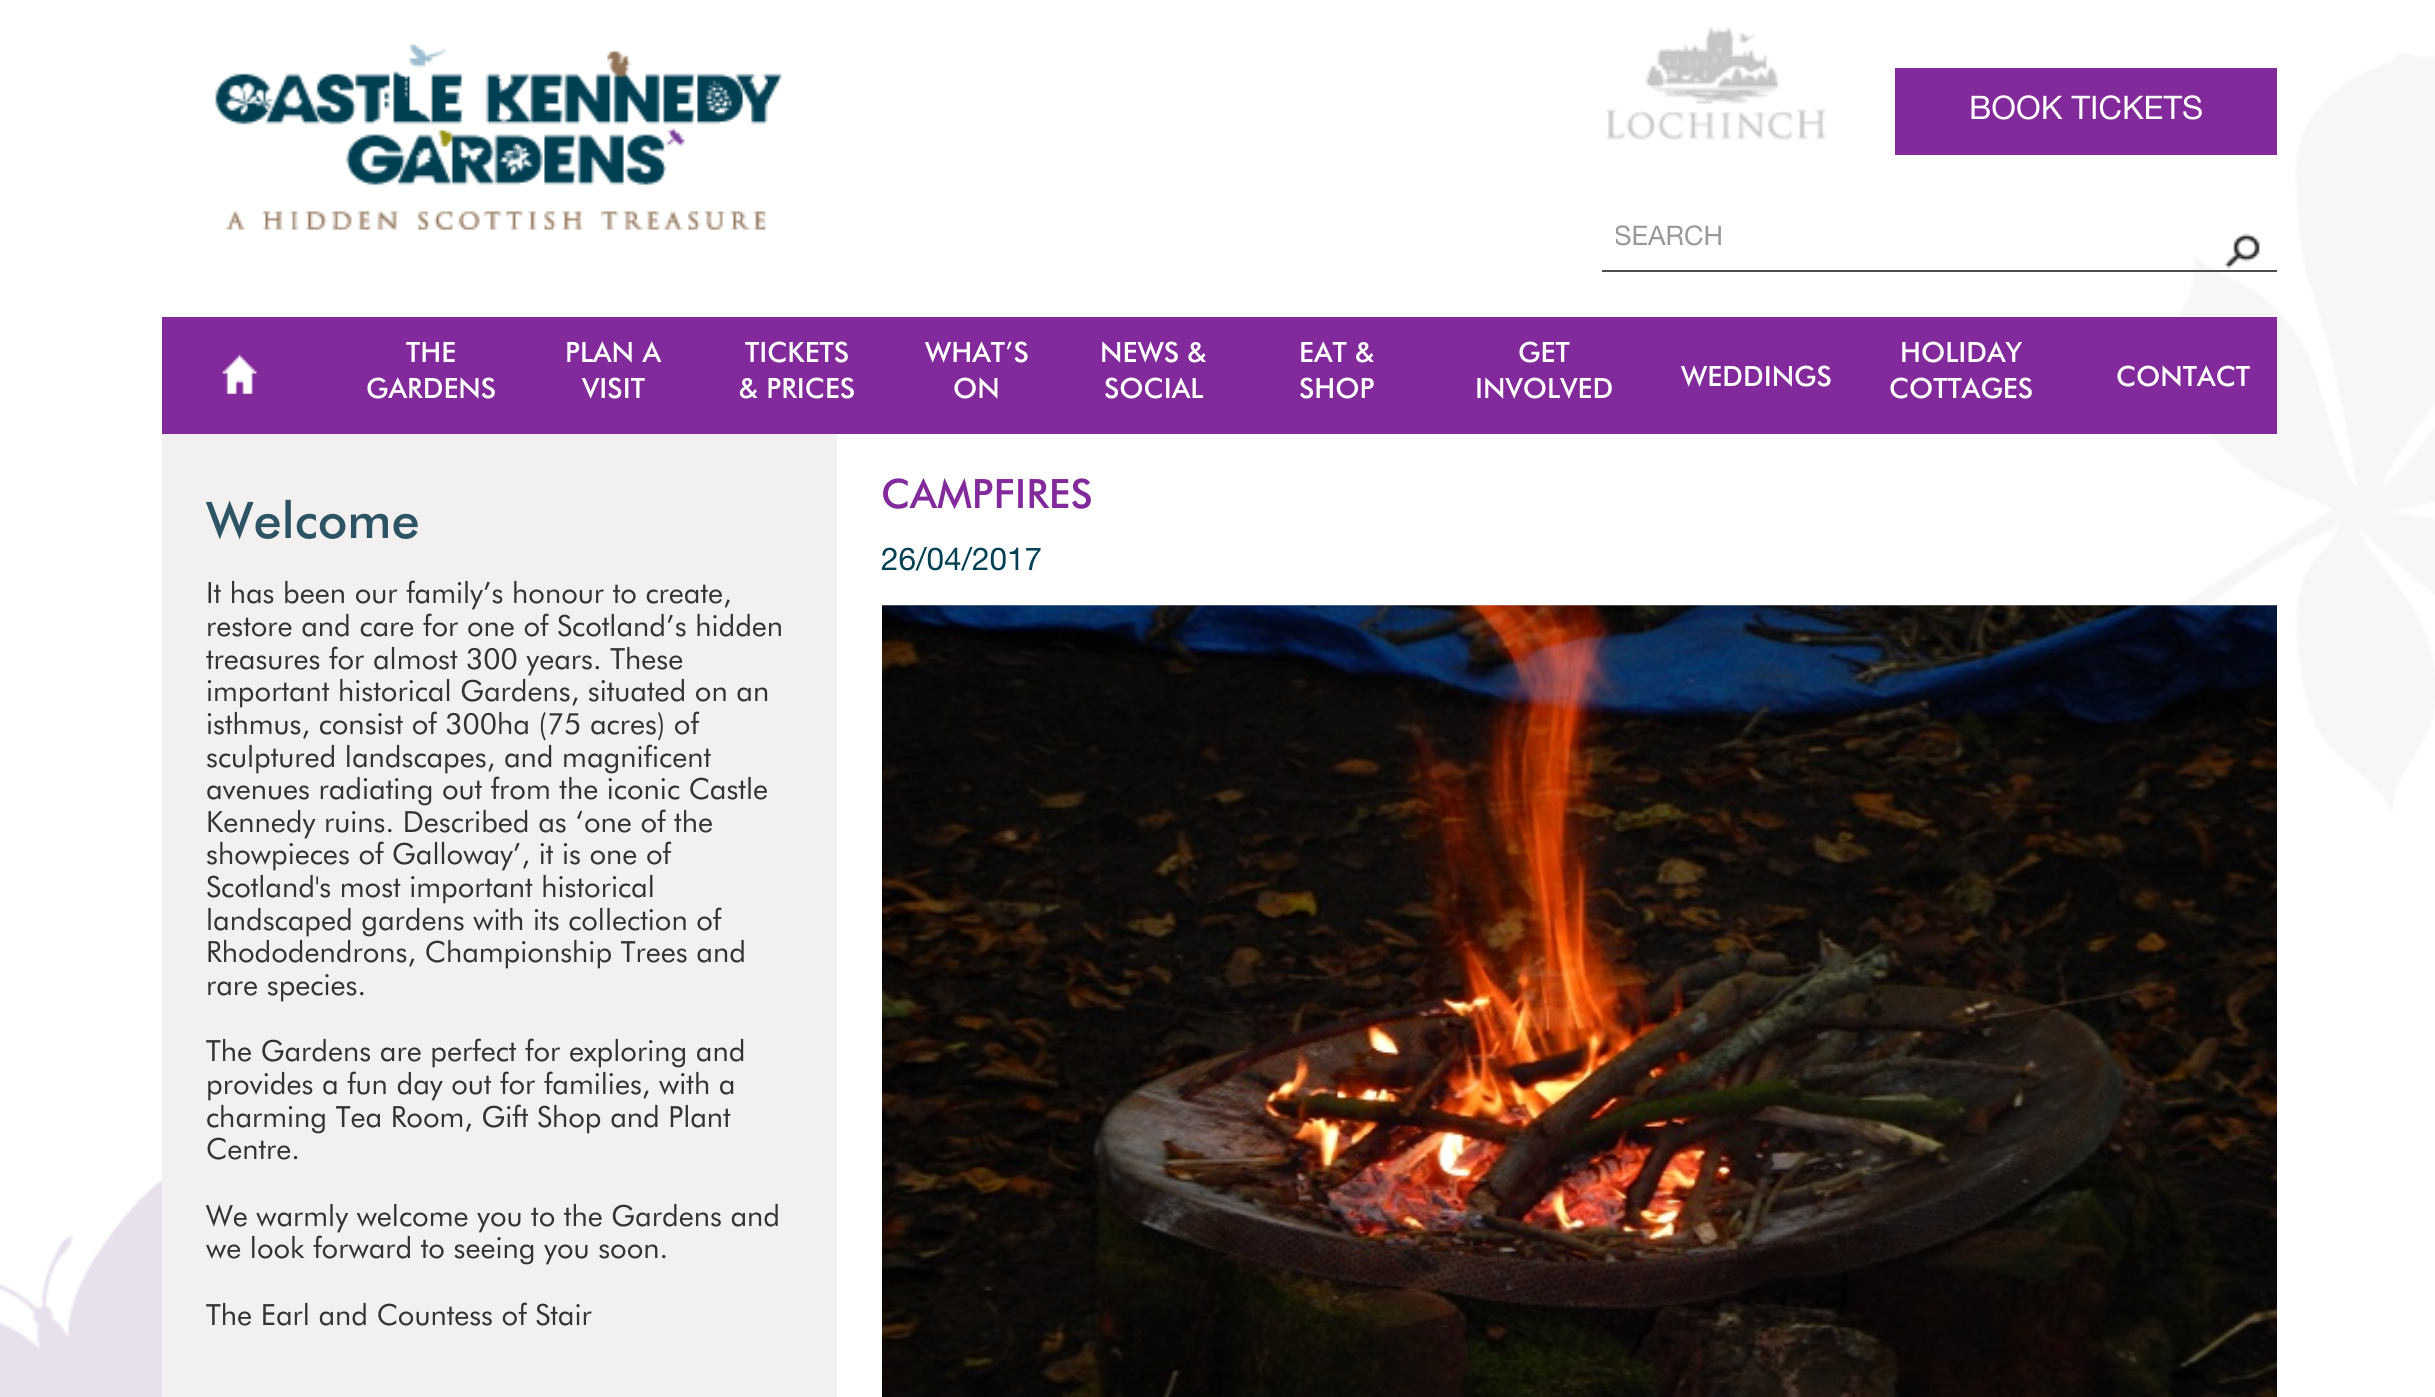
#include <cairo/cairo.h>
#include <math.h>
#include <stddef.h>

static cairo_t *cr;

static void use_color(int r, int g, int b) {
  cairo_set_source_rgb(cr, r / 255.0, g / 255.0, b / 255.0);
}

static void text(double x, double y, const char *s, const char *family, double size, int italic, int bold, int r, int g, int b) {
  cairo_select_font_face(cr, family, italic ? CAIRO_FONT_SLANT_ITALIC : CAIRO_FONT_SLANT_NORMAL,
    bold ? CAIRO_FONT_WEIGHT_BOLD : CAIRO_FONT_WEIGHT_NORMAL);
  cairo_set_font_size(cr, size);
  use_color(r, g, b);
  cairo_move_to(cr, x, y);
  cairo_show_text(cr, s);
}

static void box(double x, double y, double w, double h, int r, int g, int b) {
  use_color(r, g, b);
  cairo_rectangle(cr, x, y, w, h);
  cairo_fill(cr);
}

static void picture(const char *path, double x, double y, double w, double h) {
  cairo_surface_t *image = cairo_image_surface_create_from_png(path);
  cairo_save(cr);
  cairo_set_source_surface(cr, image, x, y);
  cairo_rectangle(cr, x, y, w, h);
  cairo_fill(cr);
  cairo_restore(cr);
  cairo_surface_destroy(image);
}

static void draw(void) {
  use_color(255, 255, 255);
  cairo_paint(cr);
  picture("img_01.png", 0, 53, 2435, 1344);
  picture("img_02.png", 215, 44, 567, 187);
  picture("img_03.png", 1606, 26, 221, 114);
  box(1895, 68, 382, 87, 130, 41, 155);
  box(1602, 270, 675, 2, 77, 77, 79);
  picture("img_04.png", 2224, 233, 36, 36);
  box(162, 317, 2115, 117, 130, 41, 155);
  picture("img_05.png", 222, 355, 35, 39);
  box(162, 434, 675, 963, 242, 240, 240);
  picture("img_06.png", 882, 605, 1395, 792);
  text(1969, 119, "BOOK TICKETS", "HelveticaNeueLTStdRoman", 32.5, 0, 0, 255, 255, 255);
  cairo_save(cr);
  cairo_rectangle(cr, 1616, 223, 450, 31);
  cairo_clip(cr);
  text(1614, 245, "SEARCH", "HelveticaNeueLTStdRoman", 27, 0, 0, 153, 153, 153);
  cairo_restore(cr);
  text(406, 362, "THE", "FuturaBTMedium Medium", 28, 0, 0, 255, 255, 255);
  text(366, 398, "GARDENS", "FuturaBTMedium Medium", 28, 0, 0, 255, 255, 255);
  text(565, 362, "PLAN A", "FuturaBTMedium Medium", 28, 0, 0, 255, 255, 255);
  text(582, 398, "VISIT", "FuturaBTMedium Medium", 28, 0, 0, 255, 255, 255);
  text(745, 362, "TICKETS", "FuturaBTMedium Medium", 28, 0, 0, 255, 255, 255);
  text(739, 398, "& PRICES", "FuturaBTMedium Medium", 28, 0, 0, 255, 255, 255);
  text(925, 362, "WHAT’S", "FuturaBTMedium Medium", 28, 0, 0, 255, 255, 255);
  text(953, 398, "ON", "FuturaBTMedium Medium", 28, 0, 0, 255, 255, 255);
  text(1100, 362, "NEWS &", "FuturaBTMedium Medium", 28, 0, 0, 255, 255, 255);
  text(1104, 398, "SOCIAL", "FuturaBTMedium Medium", 28, 0, 0, 255, 255, 255);
  text(1299, 362, "EAT &", "FuturaBTMedium Medium", 28, 0, 0, 255, 255, 255);
  text(1299, 398, "SHOP", "FuturaBTMedium Medium", 28, 0, 0, 255, 255, 255);
  text(1518, 362, "GET", "FuturaBTMedium Medium", 28, 0, 0, 255, 255, 255);
  text(1475, 398, "INVOLVED", "FuturaBTMedium Medium", 28, 0, 0, 255, 255, 255);
  text(1681, 386, "WEDDINGS", "FuturaBTMedium Medium", 28, 0, 0, 255, 255, 255);
  text(1900, 362, "HOLIDAY", "FuturaBTMedium Medium", 28, 0, 0, 255, 255, 255);
  text(1889, 398, "COTTAGES", "FuturaBTMedium Medium", 28, 0, 0, 255, 255, 255);
  text(2116, 386, "CONTACT", "FuturaBTMedium Medium", 28, 0, 0, 255, 255, 255);
  text(206, 538, "Welcome", "FuturaBTMedium Medium", 50.5, 0, 0, 45, 84, 101);
  text(206, 603, "It has been our family’s honour to create,", "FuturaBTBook", 29.2, 0, 0, 51, 51, 51);
  text(206, 636, "restore and care for one of Scotland’s hidden", "FuturaBTBook", 29.2, 0, 0, 51, 51, 51);
  text(206, 669, "treasures for almost 300 years. These", "FuturaBTBook", 29.2, 0, 0, 51, 51, 51);
  text(206, 701, "important historical Gardens, situated on an", "FuturaBTBook", 29.2, 0, 0, 51, 51, 51);
  text(206, 734, "isthmus, consist of 300ha (75 acres) of", "FuturaBTBook", 29.2, 0, 0, 51, 51, 51);
  text(206, 767, "sculptured landscapes, and magnificent", "FuturaBTBook", 29.2, 0, 0, 51, 51, 51);
  text(206, 799, "avenues radiating out from the iconic Castle", "FuturaBTBook", 29.2, 0, 0, 51, 51, 51);
  text(206, 832, "Kennedy ruins. Described as ‘one of the", "FuturaBTBook", 29.2, 0, 0, 51, 51, 51);
  text(206, 864, "showpieces of Galloway’, it is one of", "FuturaBTBook", 29.2, 0, 0, 51, 51, 51);
  text(206, 897, "Scotland's most important historical", "FuturaBTBook", 29.2, 0, 0, 51, 51, 51);
  text(206, 930, "landscaped gardens with its collection of", "FuturaBTBook", 29.2, 0, 0, 51, 51, 51);
  text(206, 962, "Rhododendrons, Championship Trees and", "FuturaBTBook", 29.2, 0, 0, 51, 51, 51);
  text(206, 995, "rare species.", "FuturaBTBook", 29.2, 0, 0, 51, 51, 51);
  text(206, 1061, "The Gardens are perfect for exploring and", "FuturaBTBook", 29.2, 0, 0, 51, 51, 51);
  text(206, 1094, "provides a fun day out for families, with a", "FuturaBTBook", 29.2, 0, 0, 51, 51, 51);
  text(206, 1127, "charming Tea Room, Gift Shop and Plant", "FuturaBTBook", 29.2, 0, 0, 51, 51, 51);
  text(206, 1159, "Centre.", "FuturaBTBook", 29.2, 0, 0, 51, 51, 51);
  text(206, 1226, "We warmly welcome you to the Gardens and", "FuturaBTBook", 29.2, 0, 0, 51, 51, 51);
  text(206, 1258, "we look forward to seeing you soon.", "FuturaBTBook", 29.2, 0, 0, 51, 51, 51);
  text(206, 1325, "The Earl and Countess of Stair", "FuturaBTBook", 29.2, 0, 0, 51, 51, 51);
  text(881, 508, "CAMPFIRES", "FuturaBTMedium Medium", 40.5, 0, 0, 130, 41, 155);
  text(881, 570, "26/04/2017", "HelveticaNeueLTStdRoman", 31.5, 0, 0, 1, 64, 83);
}

int main(void) {
  cairo_surface_t *surface = cairo_image_surface_create(CAIRO_FORMAT_RGB24, 2435, 1397);
  cr = cairo_create(surface);
  cairo_font_options_t *options = cairo_font_options_create();
  cairo_font_options_set_hint_metrics(options, CAIRO_HINT_METRICS_OFF);
  cairo_font_options_set_hint_style(options, CAIRO_HINT_STYLE_NONE);
  cairo_set_font_options(cr, options);
  cairo_set_miter_limit(cr, 4);
  draw();
  cairo_surface_write_to_png(surface, "out.png");
  cairo_font_options_destroy(options);
  cairo_destroy(cr);
  cairo_surface_destroy(surface);
  return 0;
}
